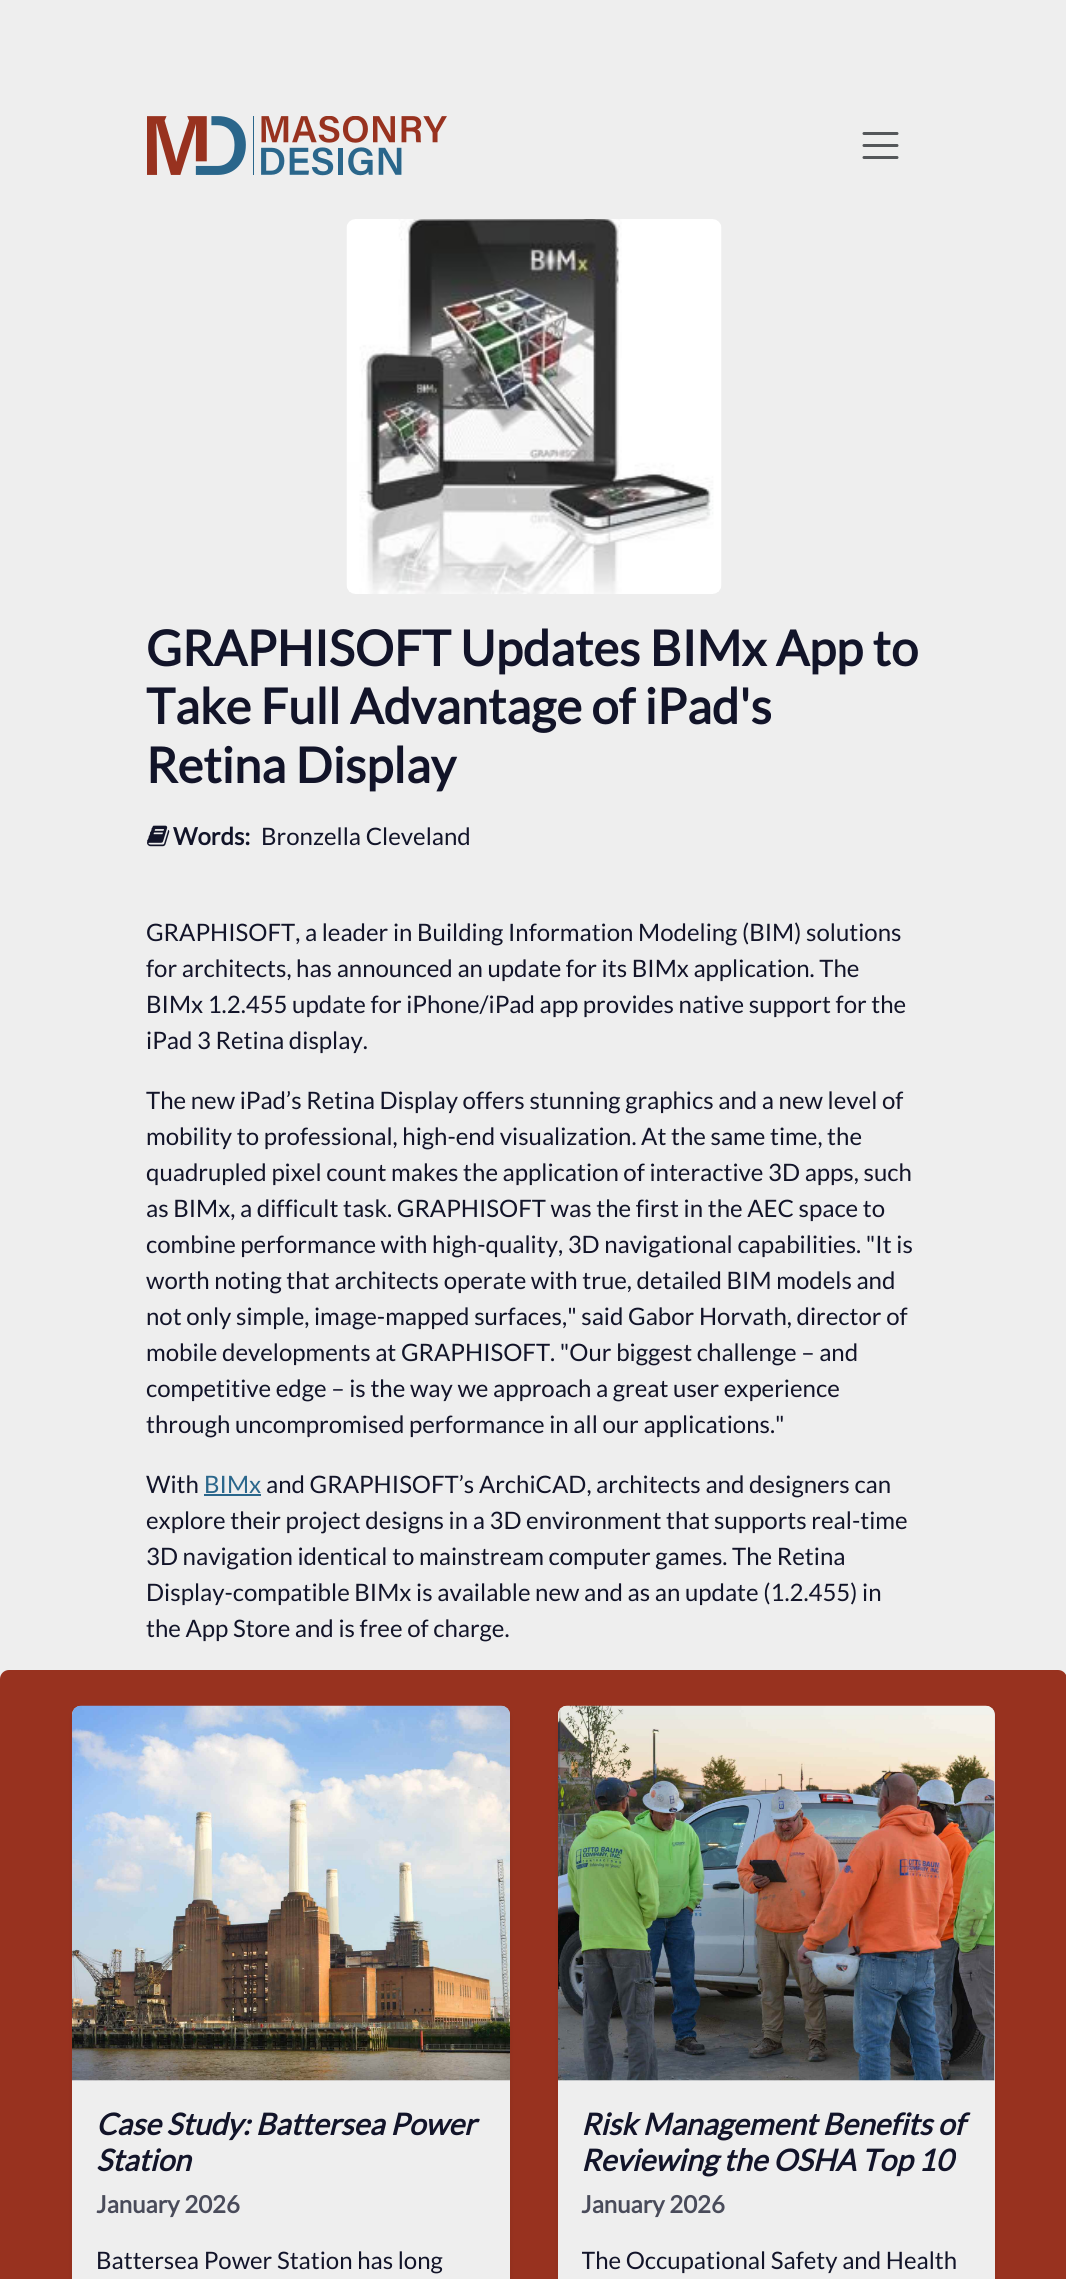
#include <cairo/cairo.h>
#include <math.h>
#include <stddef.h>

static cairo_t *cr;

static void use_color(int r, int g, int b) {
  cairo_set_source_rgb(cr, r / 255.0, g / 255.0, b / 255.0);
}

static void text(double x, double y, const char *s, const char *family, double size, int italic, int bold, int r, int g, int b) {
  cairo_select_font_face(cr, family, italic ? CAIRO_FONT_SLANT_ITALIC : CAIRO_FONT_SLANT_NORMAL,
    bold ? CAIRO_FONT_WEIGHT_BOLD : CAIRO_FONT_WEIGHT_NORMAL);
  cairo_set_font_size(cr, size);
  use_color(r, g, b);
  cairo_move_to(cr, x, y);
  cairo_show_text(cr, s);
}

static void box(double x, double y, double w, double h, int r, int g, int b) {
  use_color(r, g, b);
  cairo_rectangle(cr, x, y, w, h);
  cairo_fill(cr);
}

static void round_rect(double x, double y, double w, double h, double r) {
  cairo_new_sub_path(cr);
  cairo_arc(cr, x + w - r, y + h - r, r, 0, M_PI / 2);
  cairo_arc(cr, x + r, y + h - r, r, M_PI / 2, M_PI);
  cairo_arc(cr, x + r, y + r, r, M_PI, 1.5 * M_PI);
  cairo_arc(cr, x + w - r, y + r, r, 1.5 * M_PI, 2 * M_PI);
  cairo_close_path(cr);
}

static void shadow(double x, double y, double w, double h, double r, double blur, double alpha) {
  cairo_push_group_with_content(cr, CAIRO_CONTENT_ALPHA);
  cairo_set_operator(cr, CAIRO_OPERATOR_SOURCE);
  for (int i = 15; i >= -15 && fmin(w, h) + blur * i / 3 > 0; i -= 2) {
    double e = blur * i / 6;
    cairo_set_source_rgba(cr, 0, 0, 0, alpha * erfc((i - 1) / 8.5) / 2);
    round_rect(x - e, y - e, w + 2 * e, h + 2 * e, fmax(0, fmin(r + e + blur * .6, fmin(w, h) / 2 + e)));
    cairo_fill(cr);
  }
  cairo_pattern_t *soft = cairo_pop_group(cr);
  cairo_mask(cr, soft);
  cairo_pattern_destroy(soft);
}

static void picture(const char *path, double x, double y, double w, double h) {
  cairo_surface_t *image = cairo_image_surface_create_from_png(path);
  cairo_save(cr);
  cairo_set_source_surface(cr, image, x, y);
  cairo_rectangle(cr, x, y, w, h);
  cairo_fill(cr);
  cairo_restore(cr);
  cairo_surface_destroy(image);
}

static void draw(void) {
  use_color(238, 238, 238);
  cairo_paint(cr);
  picture("img_01.png", 147, 116, 300, 60);
  cairo_new_path(cr);
  cairo_move_to(cr, 864, 133.5);
  cairo_line_to(cr, 897, 133.5);
  cairo_move_to(cr, 864, 145.5);
  cairo_line_to(cr, 897, 145.5);
  cairo_move_to(cr, 864, 157.5);
  cairo_line_to(cr, 897, 157.5);
  use_color(84, 87, 90);
  cairo_set_line_width(cr, 3);
  cairo_set_line_cap(cr, CAIRO_LINE_CAP_ROUND);
  cairo_stroke(cr);
  picture("img_02.png", 346, 219, 376, 375);
  picture("img_03.png", 147, 825, 23, 22);
  box(204, 1494, 57, 2, 42, 102, 139);
  use_color(152, 50, 31);
  round_rect(0, 1670, 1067, 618, 9);
  cairo_fill(cr);
  use_color(0, 0, 0);
  shadow(72, 1709, 438, 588, 9, 3, 0.07);
  use_color(238, 238, 238);
  round_rect(72, 1706, 438, 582, 9);
  cairo_fill(cr);
  cairo_set_source_rgba(cr, 0.071, 0.078, 0.161, 0.03);
  cairo_rectangle(cr, 72, 1707, 438, 374);
  cairo_fill(cr);
  picture("img_04.png", 72, 1705, 438, 376);
  use_color(0, 0, 0);
  shadow(558, 1709, 437, 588, 9, 3, 0.07);
  use_color(238, 238, 238);
  round_rect(558, 1706, 437, 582, 9);
  cairo_fill(cr);
  cairo_set_source_rgba(cr, 0.071, 0.078, 0.161, 0.03);
  cairo_rectangle(cr, 558, 1707, 437, 374);
  cairo_fill(cr);
  picture("img_05.png", 558, 1705, 437, 376);
  text(146, 666, "GRAPHISOFT Updates BIMx App to", "Lato", 49, 0, 1, 18, 20, 41);
  text(146, 724, "Take Full Advantage of iPad's", "Lato", 49, 0, 1, 18, 20, 41);
  text(146, 783, "Retina Display", "Lato", 49, 0, 1, 18, 20, 41);
  text(173, 845, "Words:", "Lato", 24, 0, 1, 18, 20, 41);
  text(261, 845, "Bronzella Cleveland", "Lato", 24, 0, 0, 18, 20, 41);
  text(146, 941, "GRAPHISOFT, a leader in Building Information Modeling (BIM) solutions", "Lato", 24, 0, 0, 18, 20, 41);
  text(146, 977, "for architects, has announced an update for its BIMx application. The", "Lato", 24, 0, 0, 18, 20, 41);
  text(146, 1013, "BIMx 1.2.455 update for iPhone/iPad app provides native support for the", "Lato", 24, 0, 0, 18, 20, 41);
  text(146, 1049, "iPad 3 Retina display.", "Lato", 24, 0, 0, 18, 20, 41);
  text(146, 1109, "The new iPad’s Retina Display offers stunning graphics and a new level of", "Lato", 24, 0, 0, 18, 20, 41);
  text(146, 1145, "mobility to professional, high-end visualization. At the same time, the", "Lato", 24, 0, 0, 18, 20, 41);
  text(146, 1181, "quadrupled pixel count makes the application of interactive 3D apps, such", "Lato", 24, 0, 0, 18, 20, 41);
  text(146, 1217, "as BIMx, a difficult task. GRAPHISOFT was the first in the AEC space to", "Lato", 24, 0, 0, 18, 20, 41);
  text(146, 1253, "combine performance with high-quality, 3D navigational capabilities. \"It is", "Lato", 24, 0, 0, 18, 20, 41);
  text(146, 1289, "worth noting that architects operate with true, detailed BIM models and", "Lato", 24, 0, 0, 18, 20, 41);
  text(146, 1325, "not only simple, image-mapped surfaces,\" said Gabor Horvath, director of", "Lato", 24, 0, 0, 18, 20, 41);
  text(146, 1361, "mobile developments at GRAPHISOFT. \"Our biggest challenge – and", "Lato", 24, 0, 0, 18, 20, 41);
  text(146, 1397, "competitive edge – is the way we approach a great user experience", "Lato", 24, 0, 0, 18, 20, 41);
  text(146, 1433, "through uncompromised performance in all our applications.\"", "Lato", 24, 0, 0, 18, 20, 41);
  text(146, 1493, "With", "Lato", 24, 0, 0, 18, 20, 41);
  text(204, 1493, "BIMx", "Lato", 24, 0, 0, 42, 102, 139);
  text(266, 1493, "and GRAPHISOFT’s ArchiCAD, architects and designers can", "Lato", 24, 0, 0, 18, 20, 41);
  text(146, 1529, "explore their project designs in a 3D environment that supports real-time", "Lato", 24, 0, 0, 18, 20, 41);
  text(146, 1565, "3D navigation identical to mainstream computer games. The Retina", "Lato", 24, 0, 0, 18, 20, 41);
  text(146, 1601, "Display-compatible BIMx is available new and as an update (1.2.455) in", "Lato", 24, 0, 0, 18, 20, 41);
  text(146, 1637, "the App Store and is free of charge.", "Lato", 24, 0, 0, 18, 20, 41);
  text(96, 2135, "Case Study: Battersea Power", "Lato", 30, 1, 1, 18, 20, 41);
  text(96, 2171, "Station", "Lato", 30, 1, 1, 18, 20, 41);
  text(96, 2213, "January 2026", "Lato", 24, 0, 1, 73, 75, 90);
  text(96, 2269, "Battersea Power Station has long", "Lato", 24, 0, 0, 18, 20, 41);
  text(581, 2135, "Risk Management Benefits of", "Lato", 30, 1, 1, 18, 20, 41);
  text(581, 2171, "Reviewing the OSHA Top 10", "Lato", 30, 1, 1, 18, 20, 41);
  text(581, 2213, "January 2026", "Lato", 24, 0, 1, 73, 75, 90);
  cairo_save(cr);
  cairo_rectangle(cr, 582, 2241, 389, 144);
  cairo_clip(cr);
  text(581, 2269, "The Occupational Safety and Health", "Lato", 24, 0, 0, 18, 20, 41);
  cairo_restore(cr);
}

int main(void) {
  cairo_surface_t *surface = cairo_image_surface_create(CAIRO_FORMAT_RGB24, 1066, 2279);
  cr = cairo_create(surface);
  cairo_font_options_t *options = cairo_font_options_create();
  cairo_font_options_set_hint_metrics(options, CAIRO_HINT_METRICS_OFF);
  cairo_font_options_set_hint_style(options, CAIRO_HINT_STYLE_NONE);
  cairo_set_font_options(cr, options);
  cairo_set_miter_limit(cr, 4);
  draw();
  cairo_surface_write_to_png(surface, "out.png");
  cairo_font_options_destroy(options);
  cairo_destroy(cr);
  cairo_surface_destroy(surface);
  return 0;
}
